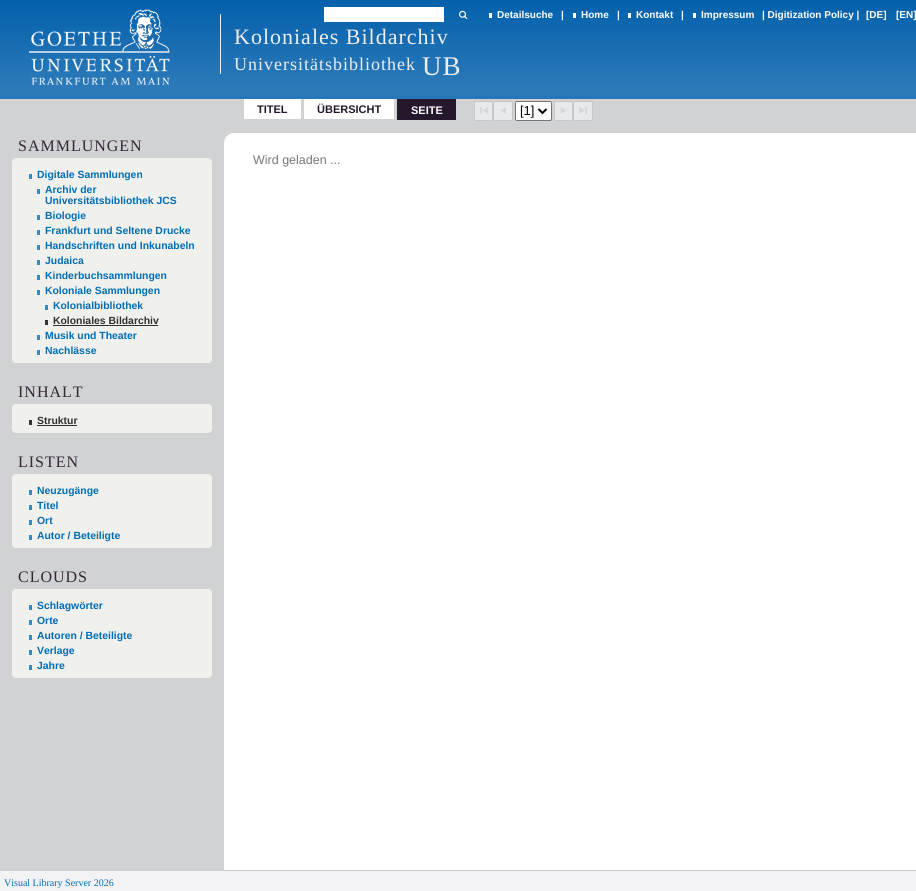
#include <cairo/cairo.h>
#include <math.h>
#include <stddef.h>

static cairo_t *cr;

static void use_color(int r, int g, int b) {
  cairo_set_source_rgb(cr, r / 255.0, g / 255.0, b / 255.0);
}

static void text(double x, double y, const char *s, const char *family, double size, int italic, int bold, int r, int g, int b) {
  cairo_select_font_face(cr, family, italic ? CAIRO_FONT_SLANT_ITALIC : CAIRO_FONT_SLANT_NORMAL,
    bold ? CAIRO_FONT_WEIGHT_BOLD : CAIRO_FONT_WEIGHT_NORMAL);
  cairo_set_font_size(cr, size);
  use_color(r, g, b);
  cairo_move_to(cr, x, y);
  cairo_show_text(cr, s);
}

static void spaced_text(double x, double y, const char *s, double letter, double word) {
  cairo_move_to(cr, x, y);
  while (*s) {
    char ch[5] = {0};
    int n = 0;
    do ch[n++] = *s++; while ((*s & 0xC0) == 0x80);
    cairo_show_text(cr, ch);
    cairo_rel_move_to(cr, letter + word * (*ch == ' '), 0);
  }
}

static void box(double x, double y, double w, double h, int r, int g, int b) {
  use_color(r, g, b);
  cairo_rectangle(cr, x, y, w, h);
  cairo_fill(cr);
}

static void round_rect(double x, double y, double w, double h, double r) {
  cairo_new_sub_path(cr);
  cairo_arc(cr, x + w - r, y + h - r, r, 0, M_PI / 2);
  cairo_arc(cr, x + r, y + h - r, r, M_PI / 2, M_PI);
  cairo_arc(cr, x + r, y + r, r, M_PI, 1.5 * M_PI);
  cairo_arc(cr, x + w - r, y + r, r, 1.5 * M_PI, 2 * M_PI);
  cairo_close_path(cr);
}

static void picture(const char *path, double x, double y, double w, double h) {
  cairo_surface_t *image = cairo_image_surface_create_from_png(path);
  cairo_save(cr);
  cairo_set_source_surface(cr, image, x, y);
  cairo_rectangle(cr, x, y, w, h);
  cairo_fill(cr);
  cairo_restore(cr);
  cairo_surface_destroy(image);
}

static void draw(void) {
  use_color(39, 118, 184);
  cairo_paint(cr);
  picture("img_01.png", 0, 0, 916, 96);
  picture("img_02.png", 29, 9, 141, 76);
  box(324, 7, 120, 15, 255, 255, 255);
  picture("img_03.png", 459, 10, 9, 10);
  box(489, 13, 3, 5, 255, 255, 255);
  box(573, 13, 3, 5, 255, 255, 255);
  box(628, 13, 3, 5, 255, 255, 255);
  box(693, 13, 3, 5, 255, 255, 255);
  box(220, 14, 1, 60, 238, 238, 238);
  box(0, 99, 916, 34, 209, 210, 212);
  box(244, 99, 57, 20, 255, 255, 255);
  box(304, 99, 90, 20, 255, 255, 255);
  box(397, 99, 59, 21, 37, 24, 44);
  use_color(232, 233, 234);
  round_rect(474.5, 101.5, 18, 19, 1.5);
  cairo_fill_preserve(cr);
  use_color(198, 199, 200);
  cairo_set_line_width(cr, 1);
  cairo_stroke(cr);
  picture("img_04.png", 480, 107, 8, 7);
  use_color(232, 233, 234);
  round_rect(493.5, 101.5, 19, 19, 1.5);
  cairo_fill_preserve(cr);
  use_color(198, 199, 200);
  cairo_stroke(cr);
  picture("img_05.png", 500, 107, 6, 7);
  use_color(255, 255, 255);
  round_rect(515.5, 101.5, 36, 19, 1.5);
  cairo_fill_preserve(cr);
  use_color(118, 118, 118);
  cairo_stroke(cr);
  cairo_new_path(cr);
  cairo_move_to(cr, 538.5, 109);
  cairo_line_to(cr, 542.5, 113);
  cairo_line_to(cr, 546.5, 109);
  use_color(0, 0, 0);
  cairo_set_line_width(cr, 2);
  cairo_stroke(cr);
  use_color(232, 233, 234);
  round_rect(554.5, 101.5, 18, 19, 1.5);
  cairo_fill_preserve(cr);
  use_color(198, 199, 200);
  cairo_set_line_width(cr, 1);
  cairo_stroke(cr);
  picture("img_06.png", 560, 107, 6, 7);
  use_color(232, 233, 234);
  round_rect(573.5, 101.5, 19, 19, 1.5);
  cairo_fill_preserve(cr);
  use_color(198, 199, 200);
  cairo_stroke(cr);
  picture("img_07.png", 579, 106, 8, 8);
  box(0, 133, 234, 737, 209, 210, 212);
  use_color(240, 240, 236);
  round_rect(12.5, 158.5, 199, 204, 3.5);
  cairo_fill_preserve(cr);
  cairo_stroke(cr);
  box(29, 174, 3, 5, 49, 140, 198);
  box(37, 189, 3, 5, 49, 140, 198);
  box(37, 215, 3, 5, 49, 140, 198);
  box(37, 230, 3, 5, 49, 140, 198);
  box(37, 245, 3, 5, 49, 140, 198);
  box(37, 260, 3, 5, 49, 140, 198);
  box(37, 275, 3, 5, 49, 140, 198);
  box(37, 290, 3, 5, 49, 140, 198);
  box(45, 305, 3, 5, 49, 140, 198);
  box(45, 320, 3, 5, 52, 52, 52);
  box(53, 325, 105, 1, 48, 48, 48);
  box(37, 335, 3, 5, 49, 140, 198);
  box(37, 350, 3, 5, 49, 140, 198);
  use_color(240, 240, 236);
  round_rect(12.5, 404.5, 199, 28, 3.5);
  cairo_fill_preserve(cr);
  cairo_stroke(cr);
  box(29, 420, 3, 5, 52, 52, 52);
  box(37, 425, 40, 1, 48, 48, 48);
  use_color(240, 240, 236);
  round_rect(12.5, 474.5, 199, 73, 3.5);
  cairo_fill_preserve(cr);
  cairo_stroke(cr);
  box(29, 490, 3, 5, 49, 140, 198);
  box(29, 505, 3, 5, 49, 140, 198);
  box(29, 520, 3, 5, 49, 140, 198);
  box(29, 535, 3, 5, 49, 140, 198);
  use_color(240, 240, 236);
  round_rect(12.5, 589.5, 199, 88, 3.5);
  cairo_fill_preserve(cr);
  cairo_stroke(cr);
  box(29, 605, 3, 5, 49, 140, 198);
  box(29, 620, 3, 5, 49, 140, 198);
  box(29, 635, 3, 5, 49, 140, 198);
  box(29, 650, 3, 5, 49, 140, 198);
  box(29, 665, 3, 5, 49, 140, 198);
  use_color(255, 255, 255);
  cairo_new_path(cr);
  cairo_move_to(cr, 234, 133);
  cairo_line_to(cr, 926, 133);
  cairo_line_to(cr, 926, 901);
  cairo_line_to(cr, 224, 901);
  cairo_line_to(cr, 224, 143);
  cairo_curve_to(cr, 224, 137.5, 228.5, 133, 234, 133);
  cairo_close_path(cr);
  cairo_fill(cr);
  box(0, 871, 916, 20, 243, 243, 246);
  box(0, 870, 916, 1, 204, 204, 204);
  text(497, 18, "Detailsuche", "Liberation Sans", 10, 0, 1, 255, 255, 255);
  text(561, 18, "|", "Liberation Sans", 10, 0, 1, 255, 255, 255);
  text(581, 18, "Home", "Liberation Sans", 10, 0, 1, 255, 255, 255);
  text(617, 18, "|", "Liberation Sans", 10, 0, 1, 255, 255, 255);
  text(636, 18, "Kontakt", "Liberation Sans", 10, 0, 1, 255, 255, 255);
  text(681, 18, "|", "Liberation Sans", 10, 0, 1, 255, 255, 255);
  text(701, 18, "Impressum", "Liberation Sans", 10, 0, 1, 255, 255, 255);
  text(762, 18, "| Digitization Policy |", "Liberation Sans", 10, 0, 1, 255, 255, 255);
  text(866, 18, "[DE]", "Liberation Sans", 10, 0, 1, 255, 255, 255);
  text(896, 18, "[EN]", "Liberation Sans", 10, 0, 1, 255, 255, 255);
  cairo_select_font_face(cr, "Liberation Serif", CAIRO_FONT_SLANT_NORMAL, CAIRO_FONT_WEIGHT_NORMAL);
  cairo_set_font_size(cr, 22);
  use_color(238, 238, 238);
  spaced_text(234, 44, "Koloniales Bildarchiv", 1, 0);
  cairo_set_font_size(cr, 18);
  spaced_text(234, 70, "Universitätsbibliothek", 1, 0);
  cairo_set_font_size(cr, 27);
  spaced_text(422, 75, "UB", 1, 0);
  text(257, 113, "TITEL", "Liberation Sans", 11, 0, 1, 37, 24, 44);
  text(317, 113, "ÜBERSICHT", "Liberation Sans", 11, 0, 1, 37, 24, 44);
  text(411, 114, "SEITE", "Liberation Sans", 11, 0, 1, 255, 255, 255);
  text(520, 115, "[1]", "Liberation Sans", 13, 0, 0, 0, 0, 0);
  cairo_select_font_face(cr, "Liberation Serif", CAIRO_FONT_SLANT_NORMAL, CAIRO_FONT_WEIGHT_NORMAL);
  cairo_set_font_size(cr, 16);
  use_color(51, 38, 54);
  spaced_text(18, 151, "SAMMLUNGEN", 1, 0);
  text(37, 178, "Digitale Sammlungen", "Liberation Sans", 10.4, 0, 1, 0, 109, 181);
  text(45, 193, "Archiv der", "Liberation Sans", 10.4, 0, 1, 0, 109, 181);
  text(45, 204, "Universitätsbibliothek JCS", "Liberation Sans", 10.4, 0, 1, 0, 109, 181);
  text(45, 219, "Biologie", "Liberation Sans", 10.4, 0, 1, 0, 109, 181);
  text(45, 234, "Frankfurt und Seltene Drucke", "Liberation Sans", 10.4, 0, 1, 0, 109, 181);
  text(45, 249, "Handschriften und Inkunabeln", "Liberation Sans", 10.4, 0, 1, 0, 109, 181);
  text(45, 264, "Judaica", "Liberation Sans", 10.4, 0, 1, 0, 109, 181);
  text(45, 279, "Kinderbuchsammlungen", "Liberation Sans", 10.4, 0, 1, 0, 109, 181);
  text(45, 294, "Koloniale Sammlungen", "Liberation Sans", 10.4, 0, 1, 0, 109, 181);
  text(53, 309, "Kolonialbibliothek", "Liberation Sans", 10.4, 0, 1, 0, 109, 181);
  text(53, 324, "Koloniales Bildarchiv", "Liberation Sans", 10.4, 0, 1, 48, 48, 48);
  text(45, 339, "Musik und Theater", "Liberation Sans", 10.4, 0, 1, 0, 109, 181);
  text(45, 354, "Nachlässe", "Liberation Sans", 10.4, 0, 1, 0, 109, 181);
  cairo_select_font_face(cr, "Liberation Serif", CAIRO_FONT_SLANT_NORMAL, CAIRO_FONT_WEIGHT_NORMAL);
  cairo_set_font_size(cr, 16);
  use_color(51, 38, 54);
  spaced_text(18, 397, "INHALT", 1, 0);
  text(37, 424, "Struktur", "Liberation Sans", 10.4, 0, 1, 48, 48, 48);
  cairo_select_font_face(cr, "Liberation Serif", CAIRO_FONT_SLANT_NORMAL, CAIRO_FONT_WEIGHT_NORMAL);
  cairo_set_font_size(cr, 16);
  use_color(51, 38, 54);
  spaced_text(18, 467, "LISTEN", 1, 0);
  text(37, 494, "Neuzugänge", "Liberation Sans", 10.4, 0, 1, 0, 109, 181);
  text(37, 509, "Titel", "Liberation Sans", 10.4, 0, 1, 0, 109, 181);
  text(37, 524, "Ort", "Liberation Sans", 10.4, 0, 1, 0, 109, 181);
  text(37, 539, "Autor / Beteiligte", "Liberation Sans", 10.4, 0, 1, 0, 109, 181);
  cairo_select_font_face(cr, "Liberation Serif", CAIRO_FONT_SLANT_NORMAL, CAIRO_FONT_WEIGHT_NORMAL);
  cairo_set_font_size(cr, 16);
  use_color(51, 38, 54);
  spaced_text(18, 582, "CLOUDS", 1, 0);
  text(37, 609, "Schlagwörter", "Liberation Sans", 10.4, 0, 1, 0, 109, 181);
  text(37, 624, "Orte", "Liberation Sans", 10.4, 0, 1, 0, 109, 181);
  text(37, 639, "Autoren / Beteiligte", "Liberation Sans", 10.4, 0, 1, 0, 109, 181);
  text(37, 654, "Verlage", "Liberation Sans", 10.4, 0, 1, 0, 109, 181);
  text(37, 669, "Jahre", "Liberation Sans", 10.4, 0, 1, 0, 109, 181);
  text(253, 164, "Wird geladen ...", "Liberation Sans", 12.5, 0, 0, 119, 119, 119);
  text(4, 886, "Visual Library Server 2026", "Liberation Serif", 10, 0, 0, 0, 109, 181);
}

int main(void) {
  cairo_surface_t *surface = cairo_image_surface_create(CAIRO_FORMAT_RGB24, 916, 891);
  cr = cairo_create(surface);
  cairo_font_options_t *options = cairo_font_options_create();
  cairo_font_options_set_hint_metrics(options, CAIRO_HINT_METRICS_OFF);
  cairo_font_options_set_hint_style(options, CAIRO_HINT_STYLE_NONE);
  cairo_set_font_options(cr, options);
  cairo_set_miter_limit(cr, 4);
  draw();
  cairo_surface_write_to_png(surface, "out.png");
  cairo_font_options_destroy(options);
  cairo_destroy(cr);
  cairo_surface_destroy(surface);
  return 0;
}
